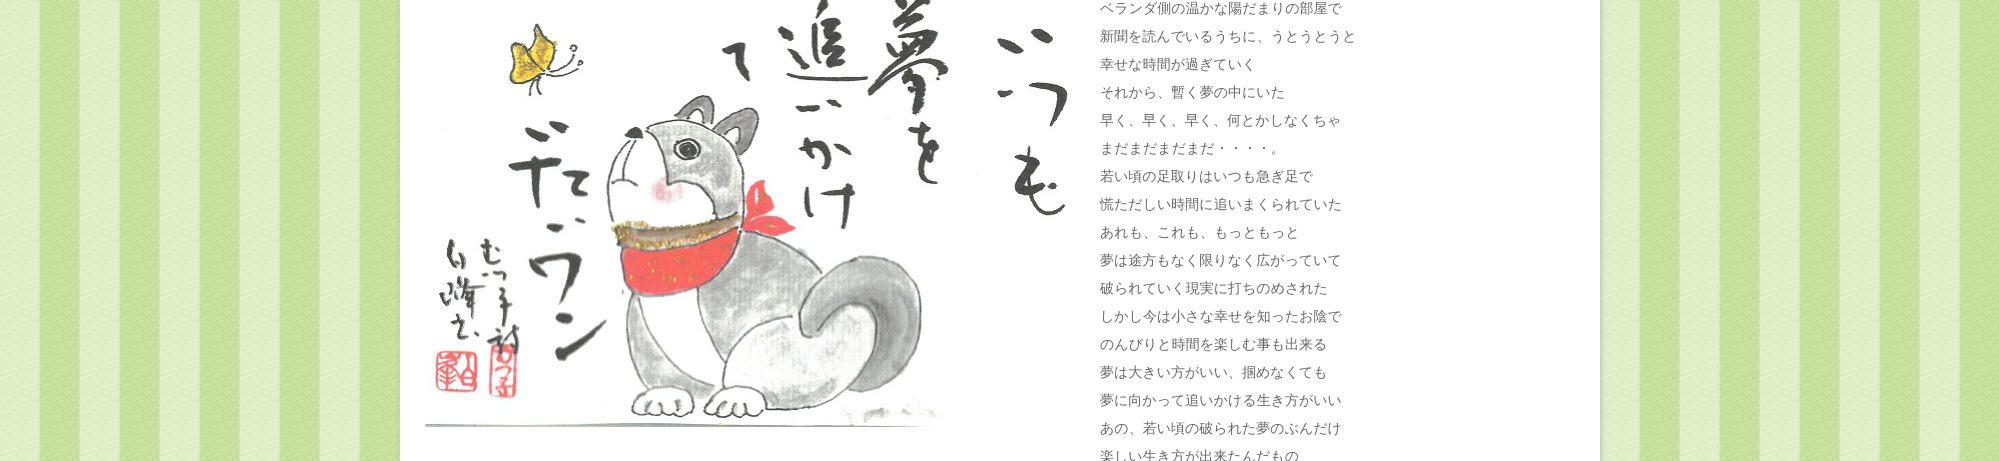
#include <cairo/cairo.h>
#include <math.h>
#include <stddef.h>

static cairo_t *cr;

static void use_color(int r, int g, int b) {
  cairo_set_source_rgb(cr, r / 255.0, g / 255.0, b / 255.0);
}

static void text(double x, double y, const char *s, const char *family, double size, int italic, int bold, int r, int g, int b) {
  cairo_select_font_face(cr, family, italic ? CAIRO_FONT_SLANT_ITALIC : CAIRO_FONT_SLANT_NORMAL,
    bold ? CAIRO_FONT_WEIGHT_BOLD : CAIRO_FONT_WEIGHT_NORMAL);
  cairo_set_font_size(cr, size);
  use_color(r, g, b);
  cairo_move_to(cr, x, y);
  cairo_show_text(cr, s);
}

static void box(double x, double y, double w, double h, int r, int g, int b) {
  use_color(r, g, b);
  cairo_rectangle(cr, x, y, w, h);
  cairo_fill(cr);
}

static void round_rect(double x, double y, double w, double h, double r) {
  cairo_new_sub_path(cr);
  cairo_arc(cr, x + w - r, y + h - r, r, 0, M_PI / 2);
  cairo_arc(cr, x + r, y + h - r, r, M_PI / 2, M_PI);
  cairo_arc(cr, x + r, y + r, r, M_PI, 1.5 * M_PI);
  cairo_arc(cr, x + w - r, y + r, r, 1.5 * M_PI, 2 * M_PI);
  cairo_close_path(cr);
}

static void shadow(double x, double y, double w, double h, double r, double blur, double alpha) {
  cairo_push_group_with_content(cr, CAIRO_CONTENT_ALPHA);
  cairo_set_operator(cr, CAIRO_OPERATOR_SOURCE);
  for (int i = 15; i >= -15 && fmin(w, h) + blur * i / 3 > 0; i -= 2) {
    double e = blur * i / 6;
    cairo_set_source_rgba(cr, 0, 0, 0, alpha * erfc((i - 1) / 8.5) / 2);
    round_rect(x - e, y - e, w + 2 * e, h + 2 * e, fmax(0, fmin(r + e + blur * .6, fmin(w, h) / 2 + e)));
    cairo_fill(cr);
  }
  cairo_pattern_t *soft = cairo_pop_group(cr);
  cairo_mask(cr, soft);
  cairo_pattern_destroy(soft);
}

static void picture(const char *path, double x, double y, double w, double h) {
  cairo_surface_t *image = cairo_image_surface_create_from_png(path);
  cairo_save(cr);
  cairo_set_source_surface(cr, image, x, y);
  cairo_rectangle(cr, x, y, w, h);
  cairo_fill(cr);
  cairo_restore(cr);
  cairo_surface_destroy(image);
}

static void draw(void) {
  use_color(255, 255, 255);
  cairo_paint(cr);
  picture("img_01.png", 0, 0, 1999, 461);
  use_color(0, 0, 0);
  shadow(401, -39, 1200, 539, 30, 3, 0.2);
  box(400, 0, 1200, 461, 255, 255, 255);
  picture("img_02.png", 425, 0, 648, 427);
  text(1100, 13, "ベランダ側の温かな陽だまりの部屋で", "WenQuanYi Zen Hei Medium", 14, 0, 0, 102, 102, 102);
  text(1100, 41, "新聞を読んでいるうちに、うとうとうと", "WenQuanYi Zen Hei Medium", 14, 0, 0, 102, 102, 102);
  text(1100, 69, "幸せな時間が過ぎていく", "WenQuanYi Zen Hei Medium", 14, 0, 0, 102, 102, 102);
  text(1100, 97, "それから、暫く夢の中にいた", "WenQuanYi Zen Hei Medium", 14, 0, 0, 102, 102, 102);
  text(1100, 125, "早く、早く、早く、何とかしなくちゃ", "WenQuanYi Zen Hei Medium", 14, 0, 0, 102, 102, 102);
  text(1100, 153, "まだまだまだまだ・・・・。", "WenQuanYi Zen Hei Medium", 14, 0, 0, 102, 102, 102);
  text(1100, 181, "若い頃の足取りはいつも急ぎ足で", "WenQuanYi Zen Hei Medium", 14, 0, 0, 102, 102, 102);
  text(1100, 209, "慌ただしい時間に追いまくられていた", "WenQuanYi Zen Hei Medium", 14, 0, 0, 102, 102, 102);
  text(1100, 237, "あれも、これも、もっともっと", "WenQuanYi Zen Hei Medium", 14, 0, 0, 102, 102, 102);
  text(1100, 265, "夢は途方もなく限りなく広がっていて", "WenQuanYi Zen Hei Medium", 14, 0, 0, 102, 102, 102);
  text(1100, 293, "破られていく現実に打ちのめされた", "WenQuanYi Zen Hei Medium", 14, 0, 0, 102, 102, 102);
  text(1100, 321, "しかし今は小さな幸せを知ったお陰で", "WenQuanYi Zen Hei Medium", 14, 0, 0, 102, 102, 102);
  text(1100, 349, "のんびりと時間を楽しむ事も出来る", "WenQuanYi Zen Hei Medium", 14, 0, 0, 102, 102, 102);
  text(1100, 377, "夢は大きい方がいい、掴めなくても", "WenQuanYi Zen Hei Medium", 14, 0, 0, 102, 102, 102);
  text(1100, 405, "夢に向かって追いかける生き方がいい", "WenQuanYi Zen Hei Medium", 14, 0, 0, 102, 102, 102);
  text(1100, 433, "あの、若い頃の破られた夢のぶんだけ", "WenQuanYi Zen Hei Medium", 14, 0, 0, 102, 102, 102);
  text(1100, 461, "楽しい生き方が出来たんだもの", "WenQuanYi Zen Hei Medium", 14, 0, 0, 102, 102, 102);
}

int main(void) {
  cairo_surface_t *surface = cairo_image_surface_create(CAIRO_FORMAT_RGB24, 1999, 461);
  cr = cairo_create(surface);
  cairo_font_options_t *options = cairo_font_options_create();
  cairo_font_options_set_hint_metrics(options, CAIRO_HINT_METRICS_OFF);
  cairo_font_options_set_hint_style(options, CAIRO_HINT_STYLE_NONE);
  cairo_set_font_options(cr, options);
  cairo_set_miter_limit(cr, 4);
  draw();
  cairo_surface_write_to_png(surface, "out.png");
  cairo_font_options_destroy(options);
  cairo_destroy(cr);
  cairo_surface_destroy(surface);
  return 0;
}
